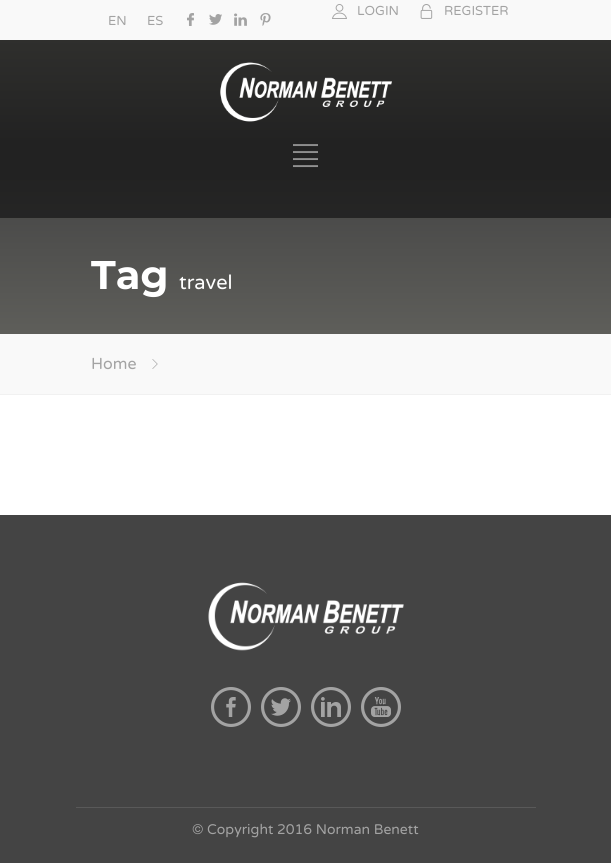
#include <cairo/cairo.h>
#include <math.h>
#include <stddef.h>

static cairo_t *cr;

static void use_color(int r, int g, int b) {
  cairo_set_source_rgb(cr, r / 255.0, g / 255.0, b / 255.0);
}

static void text(double x, double y, const char *s, const char *family, double size, int italic, int bold, int r, int g, int b) {
  cairo_select_font_face(cr, family, italic ? CAIRO_FONT_SLANT_ITALIC : CAIRO_FONT_SLANT_NORMAL,
    bold ? CAIRO_FONT_WEIGHT_BOLD : CAIRO_FONT_WEIGHT_NORMAL);
  cairo_set_font_size(cr, size);
  use_color(r, g, b);
  cairo_move_to(cr, x, y);
  cairo_show_text(cr, s);
}

static void box(double x, double y, double w, double h, int r, int g, int b) {
  use_color(r, g, b);
  cairo_rectangle(cr, x, y, w, h);
  cairo_fill(cr);
}

static void picture(const char *path, double x, double y, double w, double h) {
  cairo_surface_t *image = cairo_image_surface_create_from_png(path);
  cairo_save(cr);
  cairo_set_source_surface(cr, image, x, y);
  cairo_rectangle(cr, x, y, w, h);
  cairo_fill(cr);
  cairo_restore(cr);
  cairo_surface_destroy(image);
}

static void draw(void) {
  cairo_pattern_t *gradient;
  use_color(255, 255, 255);
  cairo_paint(cr);
  box(0, 0, 611, 40, 249, 249, 249);
  picture("img_01.png", 332, 4, 15, 15);
  picture("img_02.png", 420, 4, 13, 15);
  picture("img_03.png", 187, 13, 7, 13);
  picture("img_04.png", 209, 14, 13, 11);
  picture("img_05.png", 234, 13, 13, 13);
  picture("img_06.png", 260, 13, 11, 13);
  gradient = cairo_pattern_create_linear(306, 40, 306, 334);
  cairo_pattern_add_color_stop_rgba(gradient, 0, 0.184, 0.184, 0.176, 1);
  cairo_pattern_add_color_stop_rgba(gradient, 0.35, 0.133, 0.133, 0.133, 1);
  cairo_pattern_add_color_stop_rgba(gradient, 0.45, 0.133, 0.133, 0.133, 1);
  cairo_pattern_add_color_stop_rgba(gradient, 1, 0.184, 0.184, 0.176, 1);
  cairo_set_source(cr, gradient);
  cairo_pattern_destroy(gradient);
  cairo_rectangle(cr, 0, 40, 611, 178);
  cairo_fill(cr);
  picture("img_07.png", 220, 62, 172, 60);
  picture("img_08.png", 293, 144, 25, 24);
  gradient = cairo_pattern_create_linear(306, 40, 306, 334);
  cairo_pattern_add_color_stop_rgba(gradient, 0, 0.369, 0.369, 0.353, 1);
  cairo_pattern_add_color_stop_rgba(gradient, 0.35, 0.267, 0.267, 0.267, 1);
  cairo_pattern_add_color_stop_rgba(gradient, 0.45, 0.267, 0.267, 0.267, 1);
  cairo_pattern_add_color_stop_rgba(gradient, 1, 0.369, 0.369, 0.353, 1);
  cairo_set_source(cr, gradient);
  cairo_pattern_destroy(gradient);
  cairo_rectangle(cr, 0, 218, 611, 116);
  cairo_fill(cr);
  box(0, 334, 611, 60, 249, 249, 249);
  box(0, 394, 611, 1, 241, 241, 241);
  picture("img_09.png", 152, 359, 6, 10);
  box(0, 515, 611, 348, 68, 68, 68);
  picture("img_10.png", 208, 582, 196, 69);
  picture("img_11.png", 211, 687, 40, 40);
  picture("img_12.png", 261, 687, 40, 40);
  picture("img_13.png", 311, 687, 40, 40);
  picture("img_14.png", 361, 687, 40, 40);
  box(76, 807, 460, 1, 89, 89, 89);
  text(357, 15, "LOGIN", "Varela Round", 13, 0, 0, 163, 163, 163);
  text(444, 15, "REGISTER", "Varela Round", 13, 0, 0, 163, 163, 163);
  text(108, 25, "EN", "Varela Round", 13, 0, 0, 163, 163, 163);
  text(147, 25, "ES", "Varela Round", 13, 0, 0, 163, 163, 163);
  text(91, 289, "Tag", "Montserrat", 40, 0, 1, 255, 255, 255);
  text(179, 289, "travel", "Varela Round", 20, 0, 0, 255, 255, 255);
  text(91, 369, "Home", "Varela Round", 16, 0, 0, 163, 163, 163);
  text(192, 834, "© Copyright 2016 Norman Benett", "Varela Round", 14, 0, 0, 163, 163, 163);
}

int main(void) {
  cairo_surface_t *surface = cairo_image_surface_create(CAIRO_FORMAT_RGB24, 611, 863);
  cr = cairo_create(surface);
  cairo_font_options_t *options = cairo_font_options_create();
  cairo_font_options_set_hint_metrics(options, CAIRO_HINT_METRICS_OFF);
  cairo_font_options_set_hint_style(options, CAIRO_HINT_STYLE_NONE);
  cairo_set_font_options(cr, options);
  cairo_set_miter_limit(cr, 4);
  draw();
  cairo_surface_write_to_png(surface, "out.png");
  cairo_font_options_destroy(options);
  cairo_destroy(cr);
  cairo_surface_destroy(surface);
  return 0;
}
